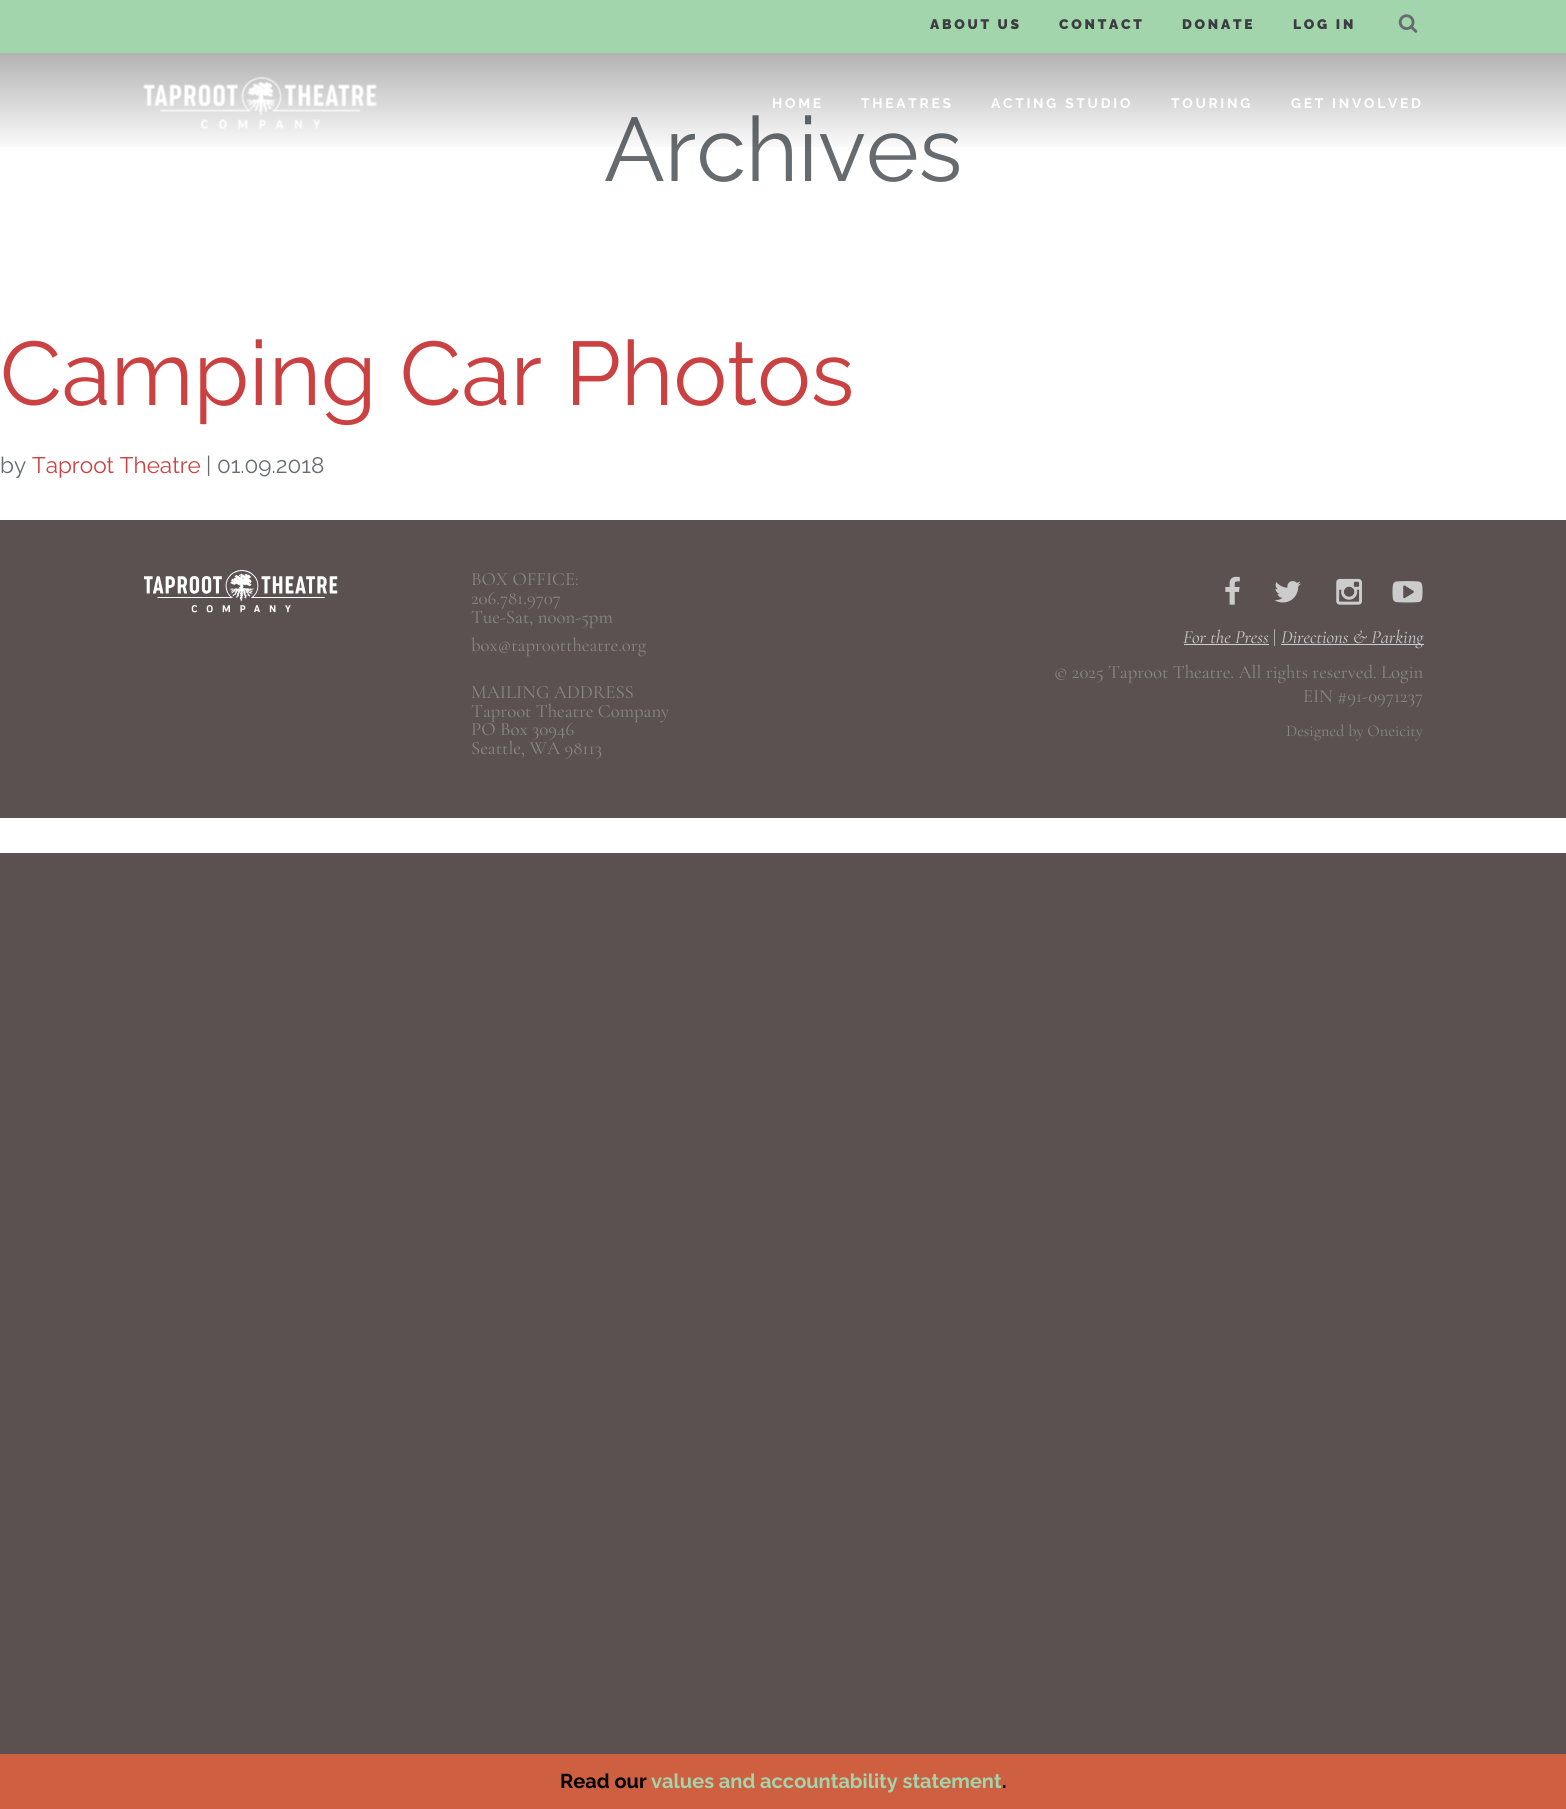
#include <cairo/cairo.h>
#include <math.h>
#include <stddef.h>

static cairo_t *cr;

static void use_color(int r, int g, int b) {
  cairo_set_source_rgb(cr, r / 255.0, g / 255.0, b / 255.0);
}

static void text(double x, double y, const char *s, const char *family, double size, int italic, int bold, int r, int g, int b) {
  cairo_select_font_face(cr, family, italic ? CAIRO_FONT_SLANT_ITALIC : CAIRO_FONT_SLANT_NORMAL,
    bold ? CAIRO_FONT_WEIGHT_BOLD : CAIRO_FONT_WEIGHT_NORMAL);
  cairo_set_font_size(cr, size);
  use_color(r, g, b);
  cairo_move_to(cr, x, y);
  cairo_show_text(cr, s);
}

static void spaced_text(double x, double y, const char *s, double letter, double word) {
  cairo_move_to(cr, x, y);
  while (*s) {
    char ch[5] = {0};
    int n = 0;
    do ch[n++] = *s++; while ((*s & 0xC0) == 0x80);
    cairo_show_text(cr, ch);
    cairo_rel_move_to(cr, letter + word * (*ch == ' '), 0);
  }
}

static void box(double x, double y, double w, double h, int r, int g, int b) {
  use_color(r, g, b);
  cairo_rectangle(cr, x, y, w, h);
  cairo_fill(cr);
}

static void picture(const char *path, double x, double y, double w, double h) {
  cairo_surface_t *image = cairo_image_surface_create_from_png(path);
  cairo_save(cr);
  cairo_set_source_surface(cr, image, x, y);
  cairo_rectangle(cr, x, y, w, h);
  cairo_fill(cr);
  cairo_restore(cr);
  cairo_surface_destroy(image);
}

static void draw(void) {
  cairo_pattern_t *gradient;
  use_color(91, 81, 81);
  cairo_paint(cr);
  box(0, 53, 1566, 800, 255, 255, 255);
  box(0, 0, 1566, 53, 162, 213, 171);
  picture("img_01.png", 1398, 14, 20, 19);
  box(0, 520, 1566, 298, 91, 81, 81);
  picture("img_03.png", 144, 570, 194, 43);
  picture("img_04.png", 1225, 576, 15, 29);
  picture("img_05.png", 1274, 581, 27, 22);
  picture("img_06.png", 1336, 578, 26, 27);
  picture("img_07.png", 1392, 581, 31, 22);
  box(1184, 644, 85, 1, 204, 204, 204);
  box(1281, 644, 143, 1, 204, 204, 204);
  box(0, 1754, 1566, 55, 206, 95, 65);
  cairo_select_font_face(cr, "Raleway Black", CAIRO_FONT_SLANT_NORMAL, CAIRO_FONT_WEIGHT_NORMAL);
  cairo_set_font_size(cr, 13.75);
  use_color(59, 61, 64);
  spaced_text(930, 29, "ABOUT US", 2.75, 0);
  spaced_text(1059, 29, "CONTACT", 2.75, 0);
  spaced_text(1182, 29, "DONATE", 2.75, 0);
  spaced_text(1293, 29, "LOG IN", 2.75, 0);
  text(604, 181, "Archives", "Raleway", 90, 0, 0, 101, 107, 111);
  gradient = cairo_pattern_create_linear(783, 52, 783, 154);
  cairo_pattern_add_color_stop_rgba(gradient, 0, 0, 0, 0, 0.3);
  cairo_pattern_add_color_stop_rgba(gradient, 1, 0, 0, 0, 0);
  cairo_set_source(cr, gradient);
  cairo_pattern_destroy(gradient);
  cairo_rectangle(cr, 0, 53, 1566, 94);
  cairo_fill(cr);
  cairo_select_font_face(cr, "Raleway", CAIRO_FONT_SLANT_NORMAL, CAIRO_FONT_WEIGHT_BOLD);
  cairo_set_font_size(cr, 13.75);
  use_color(255, 255, 255);
  spaced_text(1291, 108, "GET INVOLVED", 2.75, 0);
  spaced_text(1171, 108, "TOURING", 2.75, 0);
  spaced_text(991, 108, "ACTING STUDIO", 2.75, 0);
  spaced_text(861, 108, "THEATRES", 2.75, 0);
  spaced_text(772, 108, "HOME", 2.75, 0);
  picture("img_02.png", 143, 77, 234, 52);
  text(0, 405, "Camping Car Photos", "Raleway", 90, 0, 0, 203, 65, 65);
  text(0, 473, "by", "Raleway", 22.5, 0, 0, 101, 107, 111);
  text(32, 473, "Taproot Theatre", "Raleway", 22.5, 0, 0, 203, 65, 65);
  text(206, 473, "| 01.09.2018", "Raleway", 22.5, 0, 0, 101, 107, 111);
  text(471, 585, "BOX OFFICE:", "Cormorant Garamond", 18.75, 0, 0, 141, 134, 134);
  text(471, 604, "206.781.9707", "Cormorant Garamond", 18.75, 0, 0, 141, 134, 134);
  text(471, 623, "Tue-Sat, noon-5pm", "Cormorant Garamond", 18.75, 0, 0, 141, 134, 134);
  text(471, 651, "box@taproottheatre.org", "Cormorant Garamond", 18.75, 0, 0, 141, 134, 134);
  text(471, 698, "MAILING ADDRESS", "Cormorant Garamond", 18.75, 0, 0, 141, 134, 134);
  text(471, 717, "Taproot Theatre Company", "Cormorant Garamond", 18.75, 0, 0, 141, 134, 134);
  text(471, 735, "PO Box 30946", "Cormorant Garamond", 18.75, 0, 0, 141, 134, 134);
  text(471, 754, "Seattle, WA 98113", "Cormorant Garamond", 18.75, 0, 0, 141, 134, 134);
  text(1183, 643, "For the Press", "Cormorant Garamond", 18.75, 1, 0, 204, 204, 204);
  text(1273, 643, "|", "Cormorant Garamond", 18.75, 0, 0, 204, 204, 204);
  text(1281, 643, "Directions & Parking", "Cormorant Garamond", 18.75, 1, 0, 204, 204, 204);
  text(1054, 678, "© 2025 Taproot Theatre. All rights reserved. Login", "Cormorant Garamond", 18.75, 0, 0, 141, 134, 134);
  text(1303, 702, "EIN #91-0971237", "Cormorant Garamond", 18.75, 0, 0, 141, 134, 134);
  text(1286, 736, "Designed by Oneicity", "Cormorant Garamond", 16.25, 0, 0, 141, 134, 134);
  text(560, 1788, "Read our", "Raleway", 20, 0, 1, 0, 0, 0);
  text(651, 1788, "values and accountability statement", "Raleway", 20, 0, 1, 162, 213, 171);
  text(1002, 1788, ".", "Raleway", 20, 0, 1, 0, 0, 0);
}

int main(void) {
  cairo_surface_t *surface = cairo_image_surface_create(CAIRO_FORMAT_RGB24, 1566, 1809);
  cr = cairo_create(surface);
  cairo_font_options_t *options = cairo_font_options_create();
  cairo_font_options_set_hint_metrics(options, CAIRO_HINT_METRICS_OFF);
  cairo_font_options_set_hint_style(options, CAIRO_HINT_STYLE_NONE);
  cairo_set_font_options(cr, options);
  cairo_set_miter_limit(cr, 4);
  draw();
  cairo_surface_write_to_png(surface, "out.png");
  cairo_font_options_destroy(options);
  cairo_destroy(cr);
  cairo_surface_destroy(surface);
  return 0;
}
